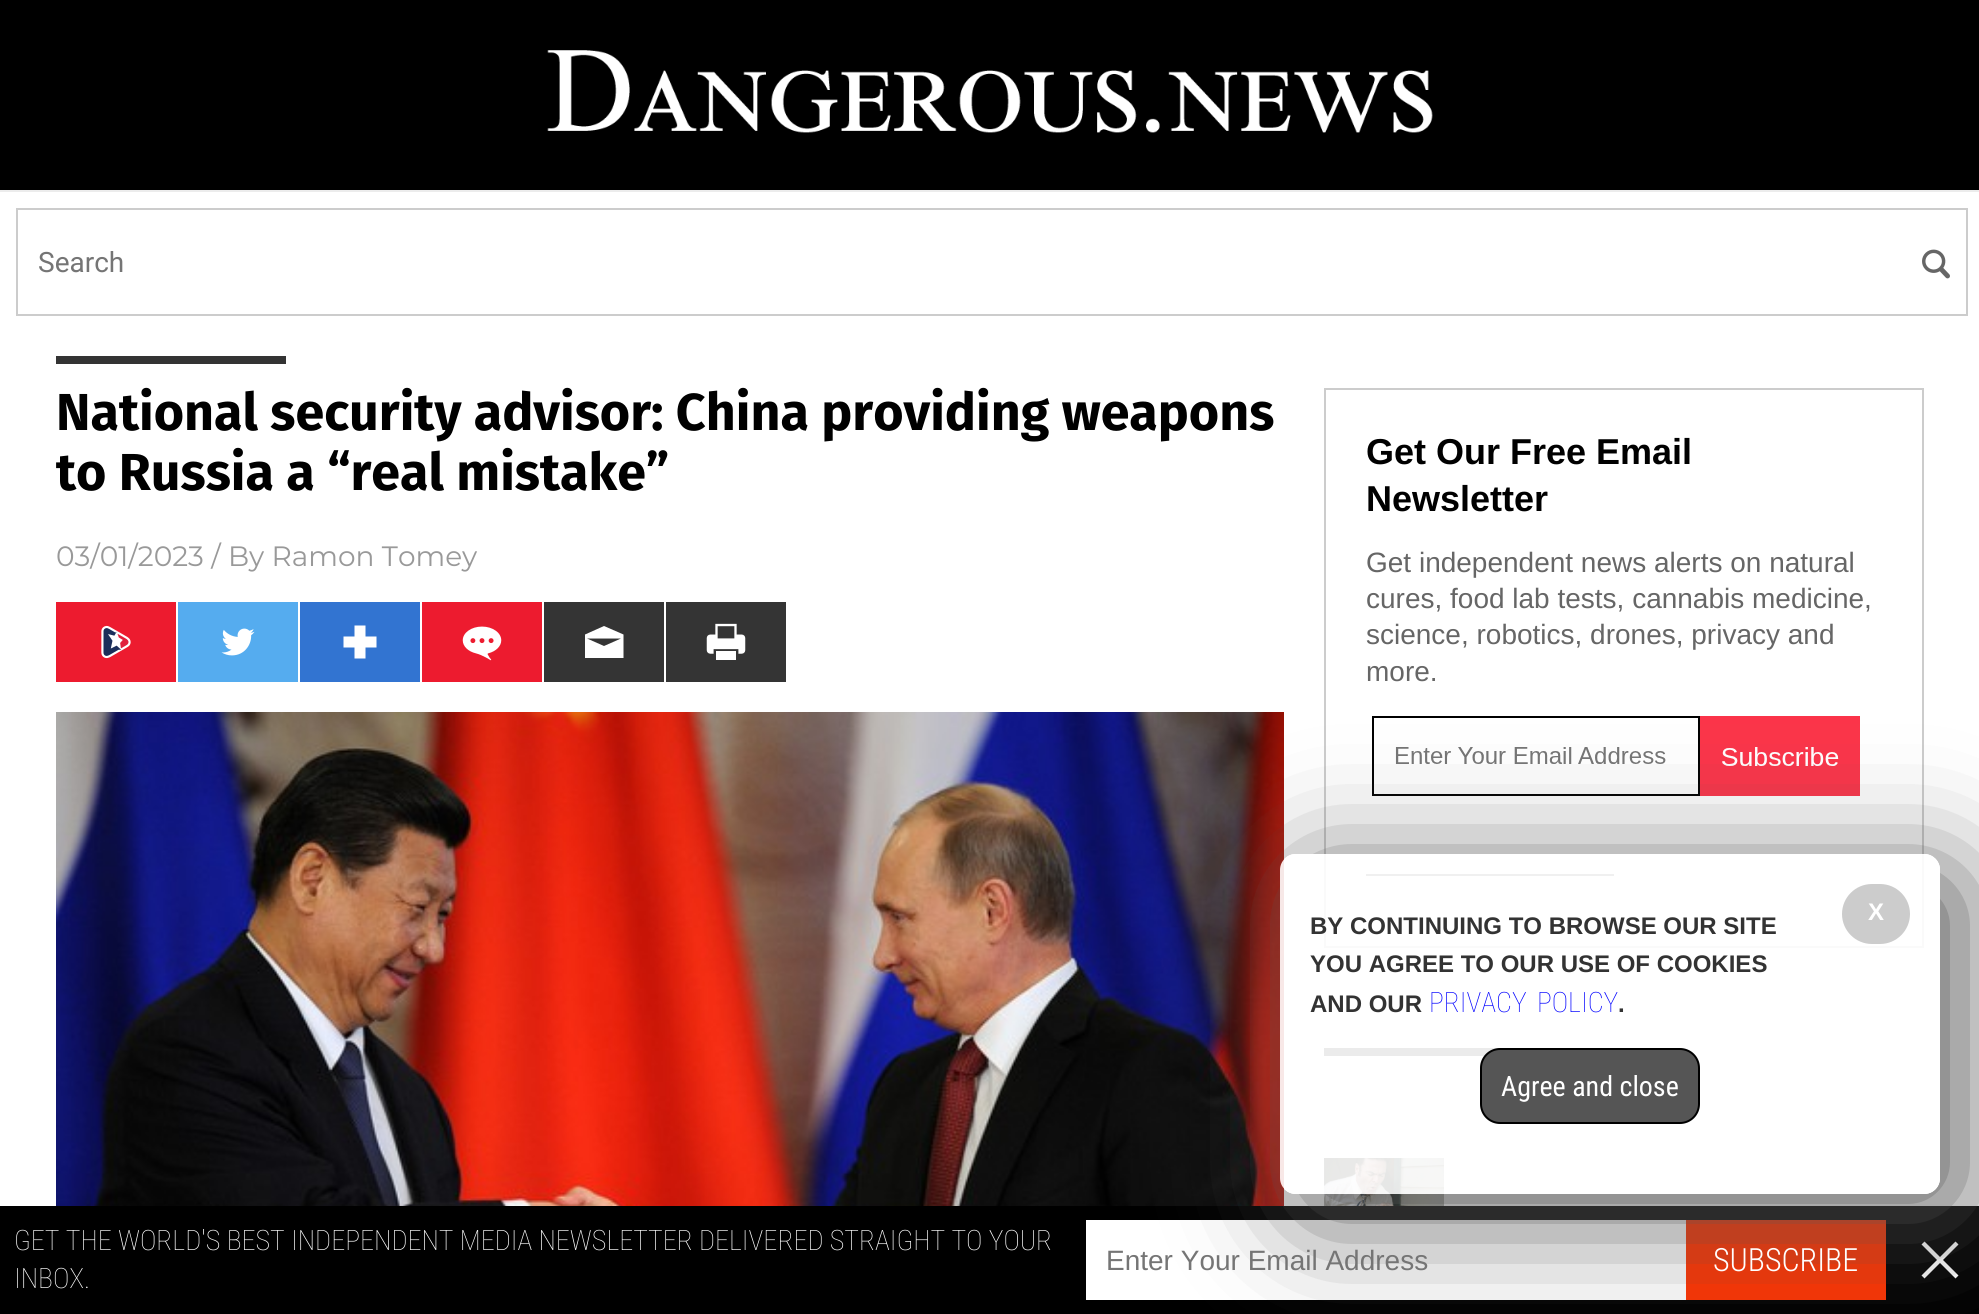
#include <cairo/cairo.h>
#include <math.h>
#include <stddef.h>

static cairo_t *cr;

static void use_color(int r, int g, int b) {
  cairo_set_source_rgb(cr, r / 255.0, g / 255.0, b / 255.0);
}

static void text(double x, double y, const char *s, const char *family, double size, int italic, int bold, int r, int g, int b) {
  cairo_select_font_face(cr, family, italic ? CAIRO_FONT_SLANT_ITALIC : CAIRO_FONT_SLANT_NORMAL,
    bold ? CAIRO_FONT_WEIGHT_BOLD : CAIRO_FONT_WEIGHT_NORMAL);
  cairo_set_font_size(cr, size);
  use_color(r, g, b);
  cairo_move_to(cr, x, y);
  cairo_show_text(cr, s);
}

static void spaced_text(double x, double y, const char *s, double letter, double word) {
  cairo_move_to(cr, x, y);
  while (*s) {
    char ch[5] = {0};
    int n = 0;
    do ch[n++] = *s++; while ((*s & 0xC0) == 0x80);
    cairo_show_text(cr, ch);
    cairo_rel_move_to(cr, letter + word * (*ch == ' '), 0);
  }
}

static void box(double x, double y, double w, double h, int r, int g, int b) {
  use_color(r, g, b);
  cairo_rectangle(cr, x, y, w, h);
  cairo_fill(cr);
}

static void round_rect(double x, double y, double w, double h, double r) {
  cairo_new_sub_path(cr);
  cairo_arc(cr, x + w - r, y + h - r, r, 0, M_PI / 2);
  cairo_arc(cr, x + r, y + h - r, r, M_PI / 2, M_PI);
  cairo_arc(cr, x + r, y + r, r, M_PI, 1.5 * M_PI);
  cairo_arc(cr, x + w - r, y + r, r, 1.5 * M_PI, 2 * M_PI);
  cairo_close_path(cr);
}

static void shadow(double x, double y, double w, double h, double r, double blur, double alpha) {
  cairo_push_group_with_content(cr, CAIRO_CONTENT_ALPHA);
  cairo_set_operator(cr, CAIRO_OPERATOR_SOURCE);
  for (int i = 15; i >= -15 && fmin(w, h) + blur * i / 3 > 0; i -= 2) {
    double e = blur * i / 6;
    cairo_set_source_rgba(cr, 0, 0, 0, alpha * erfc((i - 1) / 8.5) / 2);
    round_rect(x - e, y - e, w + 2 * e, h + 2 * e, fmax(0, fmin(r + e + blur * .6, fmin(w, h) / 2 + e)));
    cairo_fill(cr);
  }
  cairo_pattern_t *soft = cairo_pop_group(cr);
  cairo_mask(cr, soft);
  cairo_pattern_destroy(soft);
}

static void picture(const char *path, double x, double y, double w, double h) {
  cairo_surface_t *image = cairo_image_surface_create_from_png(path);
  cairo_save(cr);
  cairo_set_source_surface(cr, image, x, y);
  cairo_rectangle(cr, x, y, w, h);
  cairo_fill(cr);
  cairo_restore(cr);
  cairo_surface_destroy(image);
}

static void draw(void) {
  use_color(0, 0, 0);
  cairo_paint(cr);
  picture("img_01.png", 547, 50, 886, 83);
  box(0, 192, 1979, 1014, 255, 255, 255);
  box(0, 190, 1979, 2, 236, 236, 236);
  cairo_rectangle(cr, 17, 209, 1950, 106);
  use_color(204, 204, 204);
  cairo_stroke(cr);
  picture("img_02.png", 1922, 249, 28, 30);
  box(56, 356, 230, 8, 51, 51, 51);
  box(56, 602, 120, 80, 237, 27, 47);
  picture("img_03.png", 101, 625, 30, 34);
  box(178, 602, 120, 80, 85, 172, 239);
  picture("img_04.png", 221, 628, 34, 28);
  box(300, 602, 120, 80, 50, 116, 209);
  use_color(255, 255, 255);
  cairo_new_path(cr);
  cairo_move_to(cr, 376.5, 636.5);
  cairo_line_to(cr, 365.5, 636.5);
  cairo_line_to(cr, 365.5, 625.5);
  cairo_line_to(cr, 354.5, 625.5);
  cairo_line_to(cr, 354.5, 636.5);
  cairo_line_to(cr, 343.5, 636.5);
  cairo_line_to(cr, 343.5, 647.5);
  cairo_line_to(cr, 354.5, 647.5);
  cairo_line_to(cr, 354.5, 658.5);
  cairo_line_to(cr, 365.5, 658.5);
  cairo_line_to(cr, 365.5, 647.5);
  cairo_line_to(cr, 376.5, 647.5);
  cairo_close_path(cr);
  cairo_fill(cr);
  box(422, 602, 120, 80, 237, 27, 47);
  picture("img_05.png", 462, 626, 40, 35);
  box(544, 602, 120, 80, 52, 52, 52);
  use_color(255, 255, 255);
  cairo_new_path(cr);
  cairo_move_to(cr, 604, 626);
  cairo_line_to(cr, 585, 634.5);
  cairo_line_to(cr, 585, 658);
  cairo_line_to(cr, 623.5, 658);
  cairo_line_to(cr, 623.5, 634.5);
  cairo_close_path(cr);
  cairo_move_to(cr, 604, 646);
  cairo_line_to(cr, 587, 638.5);
  cairo_line_to(cr, 621, 638.5);
  cairo_close_path(cr);
  cairo_fill(cr);
  box(666, 602, 120, 80, 52, 52, 52);
  picture("img_06.png", 706, 623, 40, 37);
  picture("img_07.png", 56, 712, 1228, 494);
  cairo_rectangle(cr, 1325, 389, 598, 558);
  use_color(204, 204, 204);
  cairo_stroke(cr);
  picture("img_08.png", 1372, 716, 488, 80);
  box(1366, 874, 248, 2, 102, 102, 102);
  box(1324, 1048, 176, 8, 52, 52, 52);
  picture("img_09.png", 1324, 1158, 120, 48);
  box(1086, 1220, 600, 80, 255, 255, 255);
  box(1686, 1220, 200, 80, 255, 51, 0);
  use_color(255, 255, 255);
  cairo_new_path(cr);
  cairo_move_to(cr, 1958.5, 1244.5);
  cairo_line_to(cr, 1955.5, 1241.5);
  cairo_line_to(cr, 1940, 1257);
  cairo_line_to(cr, 1924.5, 1241.5);
  cairo_line_to(cr, 1921.5, 1244.5);
  cairo_line_to(cr, 1937, 1260);
  cairo_line_to(cr, 1921.5, 1275.5);
  cairo_line_to(cr, 1924.5, 1278.5);
  cairo_line_to(cr, 1940, 1263);
  cairo_line_to(cr, 1955.5, 1278.5);
  cairo_line_to(cr, 1958.5, 1275.5);
  cairo_line_to(cr, 1943, 1260);
  cairo_close_path(cr);
  cairo_fill(cr);
  cairo_save(cr);
  cairo_set_fill_rule(cr, CAIRO_FILL_RULE_EVEN_ODD);
  cairo_new_path(cr);
  cairo_move_to(cr, 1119, 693);
  cairo_line_to(cr, 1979, 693);
  cairo_line_to(cr, 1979, 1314);
  cairo_line_to(cr, 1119, 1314);
  cairo_close_path(cr);
  cairo_move_to(cr, 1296, 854);
  cairo_line_to(cr, 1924, 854);
  cairo_curve_to(cr, 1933, 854, 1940, 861, 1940, 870);
  cairo_line_to(cr, 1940, 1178);
  cairo_curve_to(cr, 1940, 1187, 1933, 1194, 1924, 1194);
  cairo_line_to(cr, 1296, 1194);
  cairo_curve_to(cr, 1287, 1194, 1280, 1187, 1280, 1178);
  cairo_line_to(cr, 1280, 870);
  cairo_curve_to(cr, 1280, 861, 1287, 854, 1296, 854);
  cairo_close_path(cr);
  cairo_clip(cr);
  use_color(85, 85, 85);
  shadow(1300, 874, 660, 340, 16, 60, 1);
  cairo_restore(cr);
  cairo_set_source_rgba(cr, 1, 1, 1, 0.9);
  round_rect(1280, 854, 660, 340, 16);
  cairo_fill(cr);
  use_color(204, 204, 204);
  round_rect(1842, 884, 68, 60, 30);
  cairo_fill(cr);
  use_color(85, 85, 85);
  round_rect(1481, 1049, 218, 74, 19);
  cairo_fill_preserve(cr);
  use_color(0, 0, 0);
  cairo_stroke(cr);
  text(38, 272, "Search", "Roboto", 28, 0, 0, 117, 117, 117);
  text(56, 430, "National security advisor: China providing weapons", "Fira Sans", 52, 0, 1, 0, 0, 0);
  text(56, 490, "to Russia a “real mistake”", "Fira Sans", 52, 0, 1, 0, 0, 0);
  text(56, 566, "03/01/2023 / By Ramon Tomey", "Montserrat", 28, 0, 0, 153, 153, 153);
  text(1366, 464, "Get Our Free Email", "Liberation Sans", 36, 0, 1, 0, 0, 0);
  text(1366, 511, "Newsletter", "Liberation Sans", 36, 0, 1, 0, 0, 0);
  text(1366, 572, "Get independent news alerts on natural", "Liberation Sans", 28, 0, 0, 102, 102, 102);
  text(1366, 608, "cures, food lab tests, cannabis medicine,", "Liberation Sans", 28, 0, 0, 102, 102, 102);
  text(1366, 644, "science, robotics, drones, privacy and", "Liberation Sans", 28, 0, 0, 102, 102, 102);
  text(1366, 681, "more.", "Liberation Sans", 28, 0, 0, 102, 102, 102);
  text(1868, 920, "X", "Liberation Sans", 24, 0, 1, 255, 255, 255);
  text(1310, 934, "BY CONTINUING TO BROWSE OUR SITE", "Liberation Sans", 24, 0, 1, 51, 51, 51);
  text(1310, 972, "YOU AGREE TO OUR USE OF COOKIES", "Liberation Sans", 24, 0, 1, 51, 51, 51);
  text(1310, 1012, "AND OUR", "Liberation Sans", 24, 0, 1, 51, 51, 51);
  cairo_select_font_face(cr, "Roboto Condensed Thin", CAIRO_FONT_SLANT_NORMAL, CAIRO_FONT_WEIGHT_NORMAL);
  cairo_set_font_size(cr, 28);
  use_color(0, 0, 255);
  spaced_text(1429, 1012, "PRIVACY POLICY", 0, 4);
  text(1618, 1012, ".", "Liberation Sans", 24, 0, 1, 51, 51, 51);
  text(1501, 1096, "Agree and close", "Roboto Condensed", 28, 0, 0, 255, 255, 255);
  text(14, 1250, "GET THE WORLD'S BEST INDEPENDENT MEDIA NEWSLETTER DELIVERED STRAIGHT TO YOUR", "Roboto Condensed Thin", 28, 0, 0, 255, 255, 255);
  text(14, 1288, "INBOX.", "Roboto Condensed Thin", 28, 0, 0, 255, 255, 255);
  text(1106, 1270, "Enter Your Email Address", "Liberation Sans", 28, 0, 0, 117, 117, 117);
  text(1713, 1271, "SUBSCRIBE", "Roboto Condensed Light", 32, 0, 0, 255, 255, 255);
}

int main(void) {
  cairo_surface_t *surface = cairo_image_surface_create(CAIRO_FORMAT_RGB24, 1979, 1314);
  cr = cairo_create(surface);
  cairo_font_options_t *options = cairo_font_options_create();
  cairo_font_options_set_hint_metrics(options, CAIRO_HINT_METRICS_OFF);
  cairo_font_options_set_hint_style(options, CAIRO_HINT_STYLE_NONE);
  cairo_set_font_options(cr, options);
  cairo_set_miter_limit(cr, 4);
  draw();
  cairo_surface_write_to_png(surface, "out.png");
  cairo_font_options_destroy(options);
  cairo_destroy(cr);
  cairo_surface_destroy(surface);
  return 0;
}
